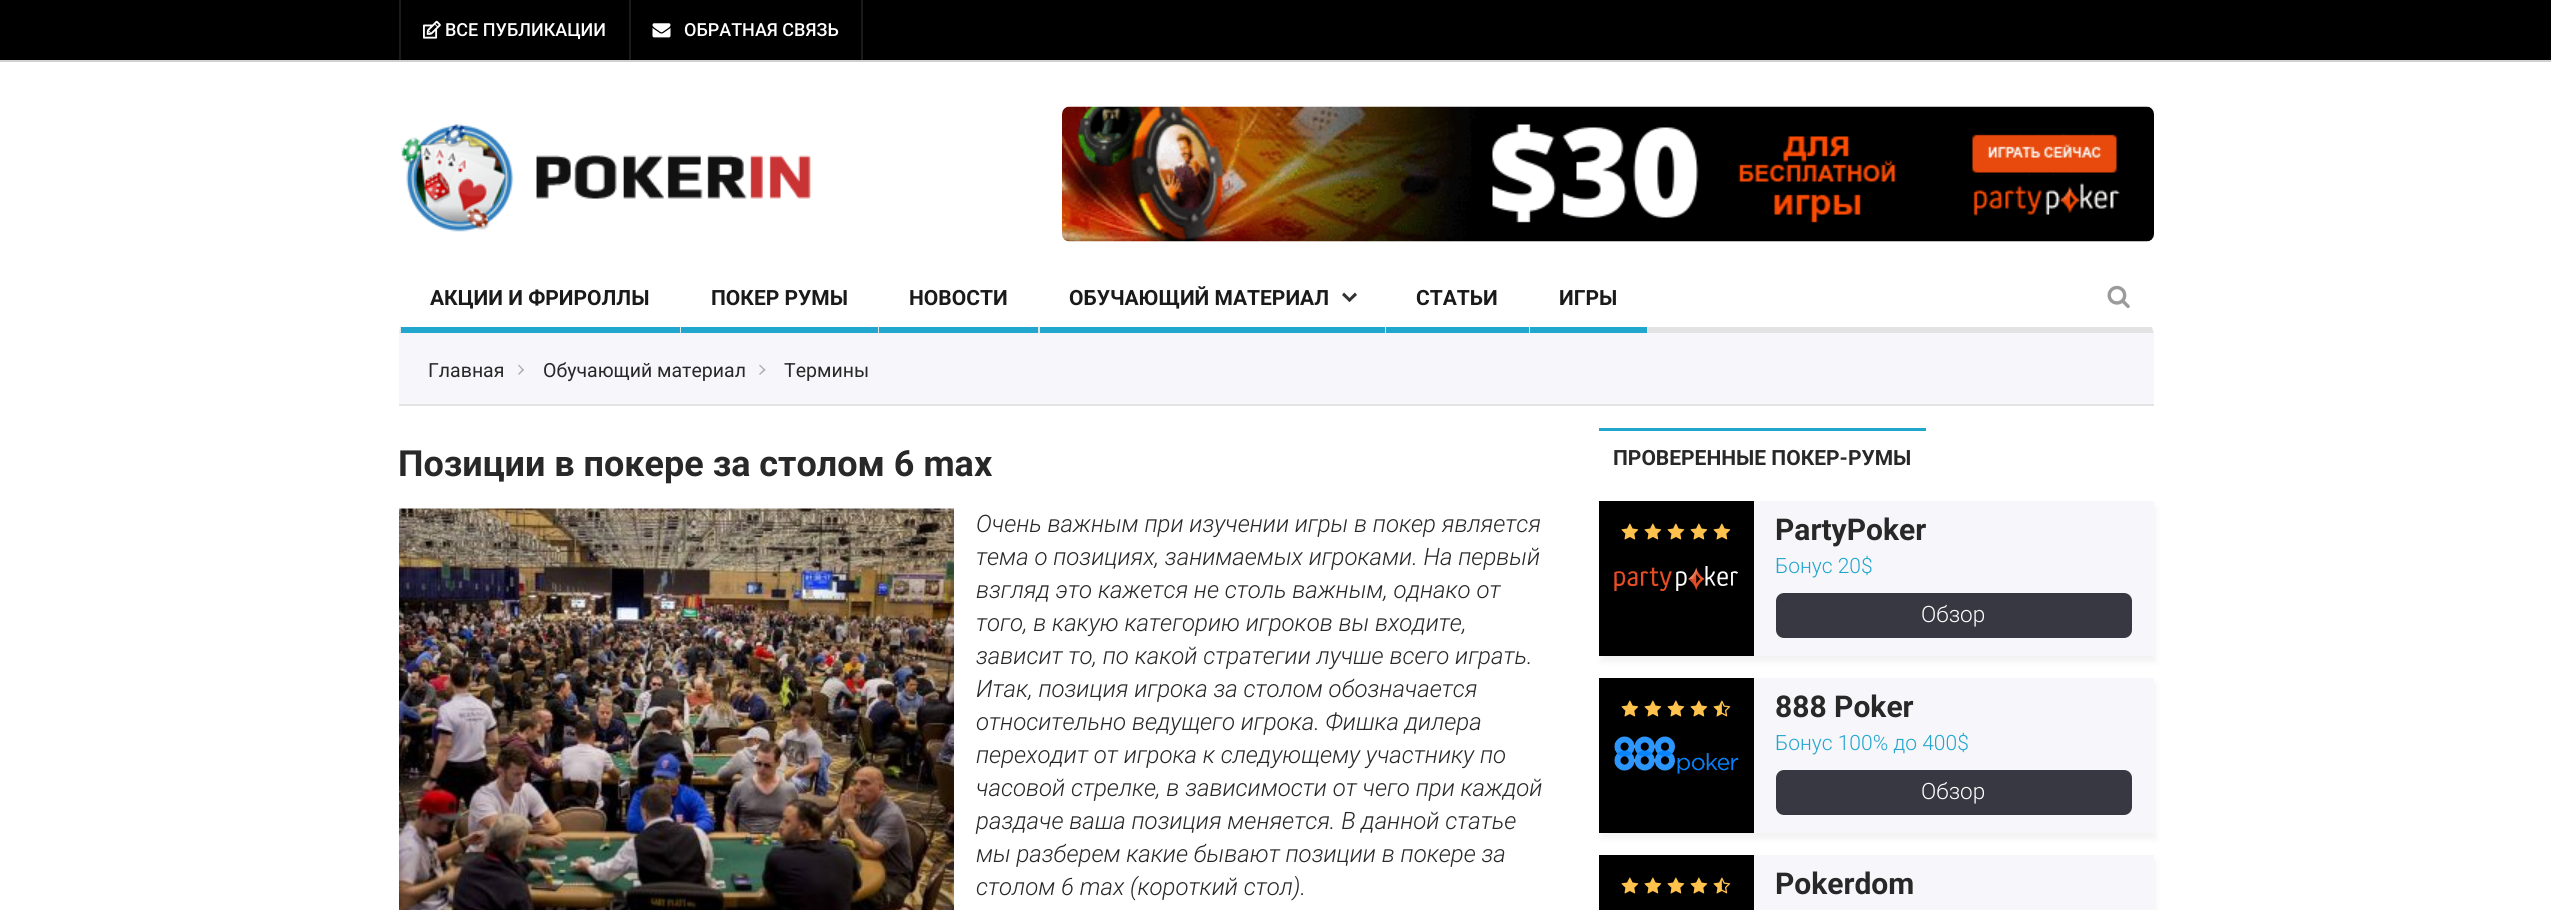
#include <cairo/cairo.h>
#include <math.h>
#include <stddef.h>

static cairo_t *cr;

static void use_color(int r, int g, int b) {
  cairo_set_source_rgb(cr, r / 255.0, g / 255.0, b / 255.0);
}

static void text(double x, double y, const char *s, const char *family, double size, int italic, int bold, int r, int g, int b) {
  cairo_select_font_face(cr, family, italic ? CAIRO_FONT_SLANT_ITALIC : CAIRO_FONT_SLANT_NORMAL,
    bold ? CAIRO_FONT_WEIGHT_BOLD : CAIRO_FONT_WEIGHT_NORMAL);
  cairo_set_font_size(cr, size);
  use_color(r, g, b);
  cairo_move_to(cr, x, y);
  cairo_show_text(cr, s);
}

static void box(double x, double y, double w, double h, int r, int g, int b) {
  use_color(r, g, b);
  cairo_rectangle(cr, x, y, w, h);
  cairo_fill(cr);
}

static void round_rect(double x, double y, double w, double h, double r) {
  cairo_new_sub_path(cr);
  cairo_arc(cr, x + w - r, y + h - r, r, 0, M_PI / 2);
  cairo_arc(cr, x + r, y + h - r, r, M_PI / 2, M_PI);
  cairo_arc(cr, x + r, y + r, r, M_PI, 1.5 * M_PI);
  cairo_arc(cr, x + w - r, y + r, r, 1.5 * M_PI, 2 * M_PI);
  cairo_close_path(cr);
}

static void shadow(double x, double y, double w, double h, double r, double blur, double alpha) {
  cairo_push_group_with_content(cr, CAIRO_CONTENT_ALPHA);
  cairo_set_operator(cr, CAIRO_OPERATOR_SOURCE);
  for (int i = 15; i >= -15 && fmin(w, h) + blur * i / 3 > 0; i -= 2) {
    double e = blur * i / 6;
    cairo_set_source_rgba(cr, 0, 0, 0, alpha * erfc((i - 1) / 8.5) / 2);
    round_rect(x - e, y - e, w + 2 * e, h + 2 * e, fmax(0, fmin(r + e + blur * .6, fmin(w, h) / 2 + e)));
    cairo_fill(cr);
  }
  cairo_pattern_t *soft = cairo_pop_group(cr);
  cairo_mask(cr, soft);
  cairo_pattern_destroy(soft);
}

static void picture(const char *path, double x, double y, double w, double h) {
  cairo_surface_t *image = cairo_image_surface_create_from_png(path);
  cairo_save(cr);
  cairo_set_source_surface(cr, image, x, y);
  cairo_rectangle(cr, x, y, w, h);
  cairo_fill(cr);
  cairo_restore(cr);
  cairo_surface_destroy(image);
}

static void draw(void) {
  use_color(255, 255, 255);
  cairo_paint(cr);
  box(0, 0, 2551, 60, 0, 0, 0);
  box(0, 60, 2551, 2, 209, 209, 209);
  box(629, 0, 2, 60, 26, 26, 26);
  box(399, 0, 2, 60, 26, 26, 26);
  picture("img_01.png", 423, 20, 18, 19);
  box(861, 0, 2, 60, 26, 26, 26);
  picture("img_02.png", 652, 23, 19, 15);
  picture("img_03.png", 401, 124, 410, 108);
  picture("img_04.png", 1062, 106, 1092, 136);
  use_color(227, 227, 227);
  cairo_new_path(cr);
  cairo_move_to(cr, 2154, 334);
  cairo_line_to(cr, 399, 334);
  cairo_line_to(cr, 400, 327);
  cairo_line_to(cr, 2152, 327);
  cairo_close_path(cr);
  cairo_fill(cr);
  box(401, 327, 279, 6, 33, 166, 206);
  box(681, 327, 197, 6, 33, 166, 206);
  box(879, 327, 159, 6, 33, 166, 206);
  box(1040, 327, 345, 6, 33, 166, 206);
  use_color(51, 51, 51);
  cairo_new_path(cr);
  cairo_move_to(cr, 1355, 292.5);
  cairo_line_to(cr, 1357, 295);
  cairo_line_to(cr, 1349.5, 302);
  cairo_line_to(cr, 1347.5, 300);
  cairo_close_path(cr);
  cairo_fill(cr);
  cairo_new_path(cr);
  cairo_move_to(cr, 1344, 292.5);
  cairo_line_to(cr, 1351.5, 300);
  cairo_line_to(cr, 1349.5, 302);
  cairo_line_to(cr, 1342, 295);
  cairo_close_path(cr);
  cairo_fill(cr);
  box(1386, 327, 143, 6, 33, 166, 206);
  box(1530, 327, 117, 6, 33, 166, 206);
  picture("img_05.png", 2107, 285, 23, 23);
  box(399, 333, 1755, 71, 247, 246, 250);
  box(399, 404, 1755, 2, 227, 227, 227);
  use_color(177, 177, 177);
  cairo_new_path(cr);
  cairo_move_to(cr, 518, 365.5);
  cairo_line_to(cr, 519, 364.5);
  cairo_line_to(cr, 524, 370);
  cairo_line_to(cr, 523, 371);
  cairo_close_path(cr);
  cairo_fill(cr);
  cairo_new_path(cr);
  cairo_move_to(cr, 518, 374);
  cairo_line_to(cr, 523, 368.5);
  cairo_line_to(cr, 524, 370);
  cairo_line_to(cr, 519, 375);
  cairo_close_path(cr);
  cairo_fill(cr);
  cairo_new_path(cr);
  cairo_move_to(cr, 759, 365.5);
  cairo_line_to(cr, 760, 364.5);
  cairo_line_to(cr, 765.5, 370);
  cairo_line_to(cr, 764.5, 371);
  cairo_close_path(cr);
  cairo_fill(cr);
  cairo_new_path(cr);
  cairo_move_to(cr, 759, 374);
  cairo_line_to(cr, 764.5, 368.5);
  cairo_line_to(cr, 765.5, 370);
  cairo_line_to(cr, 760, 375);
  cairo_close_path(cr);
  cairo_fill(cr);
  picture("img_06.png", 399, 508, 555, 402);
  box(1599, 428, 327, 3, 33, 166, 206);
  use_color(0, 0, 0);
  shadow(1601, 507, 555, 155, 0, 3, 0.05);
  box(1754, 501, 400, 155, 247, 246, 250);
  box(1599, 501, 155, 155, 0, 0, 0);
  picture("img_07.png", 1614, 566, 124, 25);
  picture("img_08.png", 1621, 523, 110, 17);
  use_color(56, 56, 66);
  round_rect(1776, 593, 356, 45, 8);
  cairo_fill(cr);
  use_color(0, 0, 0);
  shadow(1601, 684, 555, 155, 0, 3, 0.05);
  box(1754, 678, 400, 155, 247, 246, 250);
  box(1599, 678, 155, 155, 0, 0, 0);
  picture("img_09.png", 1614, 736, 125, 38);
  picture("img_10.png", 1621, 700, 110, 17);
  use_color(56, 56, 66);
  round_rect(1776, 770, 356, 45, 8);
  cairo_fill(cr);
  use_color(0, 0, 0);
  shadow(1601, 861, 555, 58, 0, 3, 0.05);
  box(1754, 855, 400, 55, 247, 246, 250);
  box(1599, 855, 155, 55, 0, 0, 0);
  picture("img_10.png", 1621, 877, 110, 17);
  text(445, 36, "ВСЕ ПУБЛИКАЦИИ", "Roboto Medium", 18, 0, 0, 255, 255, 255);
  text(684, 36, "ОБРАТНАЯ СВЯЗЬ", "Roboto Medium", 18, 0, 0, 255, 255, 255);
  text(430, 305, "АКЦИИ И ФРИРОЛЛЫ", "Roboto", 21, 0, 1, 26, 26, 26);
  text(711, 305, "ПОКЕР РУМЫ", "Roboto", 21, 0, 1, 26, 26, 26);
  text(909, 305, "НОВОСТИ", "Roboto", 21, 0, 1, 26, 26, 26);
  text(1069, 305, "ОБУЧАЮЩИЙ МАТЕРИАЛ", "Roboto", 21, 0, 1, 26, 26, 26);
  text(1416, 305, "СТАТЬИ", "Roboto", 21, 0, 1, 26, 26, 26);
  text(1559, 305, "ИГРЫ", "Roboto", 21, 0, 1, 26, 26, 26);
  text(428, 377, "Главная", "Roboto", 19.5, 0, 0, 40, 40, 40);
  text(543, 377, "Обучающий материал", "Roboto", 19.5, 0, 0, 40, 40, 40);
  text(784, 377, "Термины", "Roboto", 19.5, 0, 0, 40, 40, 40);
  text(398, 476, "Позиции в покере за столом 6 max", "Roboto", 36, 0, 1, 40, 40, 40);
  text(976, 532, "Очень важным при изучении игры в покер является", "Roboto Light", 24, 1, 0, 40, 40, 40);
  text(976, 565, "тема о позициях, занимаемых игроками. На первый", "Roboto Light", 24, 1, 0, 40, 40, 40);
  text(976, 598, "взгляд это кажется не столь важным, однако от", "Roboto Light", 24, 1, 0, 40, 40, 40);
  text(976, 631, "того, в какую категорию игроков вы входите,", "Roboto Light", 24, 1, 0, 40, 40, 40);
  text(976, 664, "зависит то, по какой стратегии лучше всего играть.", "Roboto Light", 24, 1, 0, 40, 40, 40);
  text(976, 697, "Итак, позиция игрока за столом обозначается", "Roboto Light", 24, 1, 0, 40, 40, 40);
  text(976, 730, "относительно ведущего игрока. Фишка дилера", "Roboto Light", 24, 1, 0, 40, 40, 40);
  text(976, 763, "переходит от игрока к следующему участнику по", "Roboto Light", 24, 1, 0, 40, 40, 40);
  text(976, 796, "часовой стрелке, в зависимости от чего при каждой", "Roboto Light", 24, 1, 0, 40, 40, 40);
  text(976, 829, "раздаче ваша позиция меняется. В данной статье", "Roboto Light", 24, 1, 0, 40, 40, 40);
  text(976, 862, "мы разберем какие бывают позиции в покере за", "Roboto Light", 24, 1, 0, 40, 40, 40);
  text(976, 895, "столом 6 max (короткий стол).", "Roboto Light", 24, 1, 0, 40, 40, 40);
  text(1613, 465, "ПРОВЕРЕННЫЕ ПОКЕР-РУМЫ", "Roboto", 21, 0, 1, 40, 40, 40);
  text(1775, 540, "PartyPoker", "Roboto", 30, 0, 1, 40, 40, 40);
  text(1775, 573, "Бонус 20$", "Roboto Light", 21, 0, 0, 33, 166, 206);
  text(1921, 622, "Обзор", "Roboto Light", 22.5, 0, 0, 255, 255, 255);
  text(1775, 717, "888 Poker", "Roboto", 30, 0, 1, 40, 40, 40);
  text(1775, 750, "Бонус 100% до 400$", "Roboto Light", 21, 0, 0, 33, 166, 206);
  text(1921, 799, "Обзор", "Roboto Light", 22.5, 0, 0, 255, 255, 255);
  text(1775, 894, "Pokerdom", "Roboto", 30, 0, 1, 40, 40, 40);
}

int main(void) {
  cairo_surface_t *surface = cairo_image_surface_create(CAIRO_FORMAT_RGB24, 2551, 910);
  cr = cairo_create(surface);
  cairo_font_options_t *options = cairo_font_options_create();
  cairo_font_options_set_hint_metrics(options, CAIRO_HINT_METRICS_OFF);
  cairo_font_options_set_hint_style(options, CAIRO_HINT_STYLE_NONE);
  cairo_set_font_options(cr, options);
  cairo_set_miter_limit(cr, 4);
  draw();
  cairo_surface_write_to_png(surface, "out.png");
  cairo_font_options_destroy(options);
  cairo_destroy(cr);
  cairo_surface_destroy(surface);
  return 0;
}
